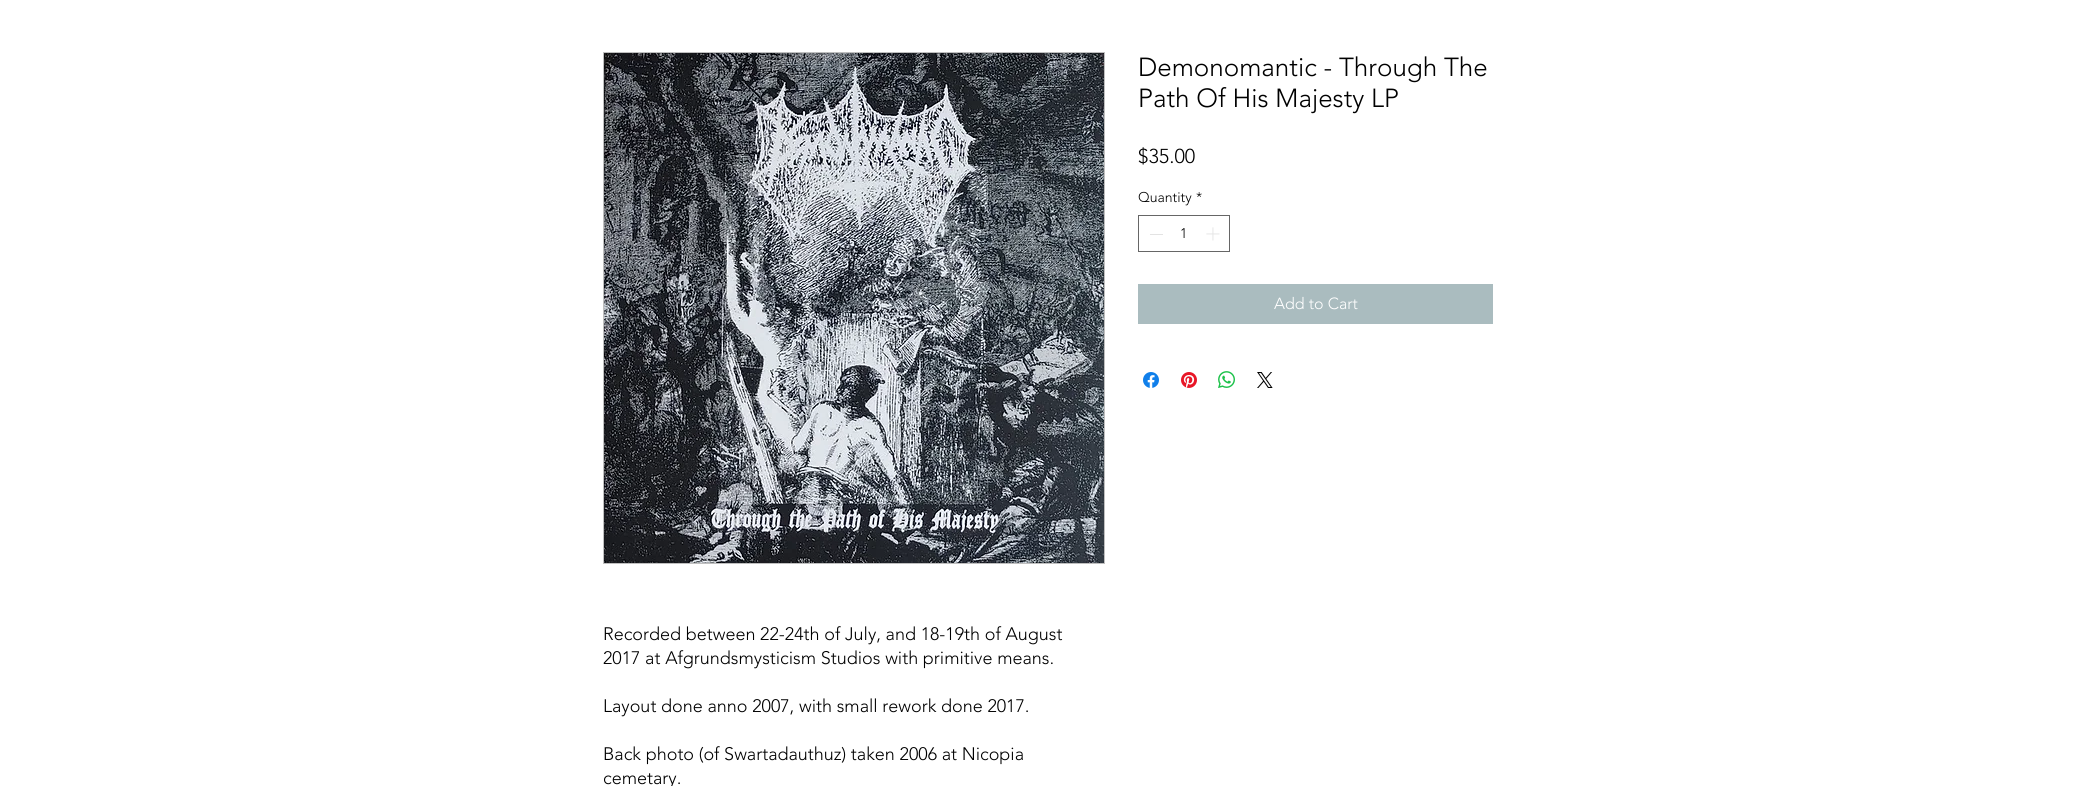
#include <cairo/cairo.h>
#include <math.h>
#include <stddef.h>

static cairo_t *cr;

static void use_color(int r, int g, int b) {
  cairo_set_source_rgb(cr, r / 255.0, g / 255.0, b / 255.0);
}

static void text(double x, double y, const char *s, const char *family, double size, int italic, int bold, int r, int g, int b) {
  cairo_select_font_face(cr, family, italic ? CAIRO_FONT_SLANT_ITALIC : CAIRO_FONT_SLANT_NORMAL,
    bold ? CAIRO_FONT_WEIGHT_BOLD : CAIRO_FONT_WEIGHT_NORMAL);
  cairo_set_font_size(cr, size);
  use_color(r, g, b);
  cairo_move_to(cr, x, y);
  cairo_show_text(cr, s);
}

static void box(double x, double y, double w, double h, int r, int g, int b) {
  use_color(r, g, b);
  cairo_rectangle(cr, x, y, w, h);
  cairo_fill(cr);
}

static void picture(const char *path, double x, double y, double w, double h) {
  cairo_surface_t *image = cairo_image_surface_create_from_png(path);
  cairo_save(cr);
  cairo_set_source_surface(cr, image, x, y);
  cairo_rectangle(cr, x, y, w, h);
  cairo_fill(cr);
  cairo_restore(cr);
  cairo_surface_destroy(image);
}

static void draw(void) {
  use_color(255, 255, 255);
  cairo_paint(cr);
  cairo_rectangle(cr, 1138.5, 215.5, 91, 36);
  use_color(102, 102, 102);
  cairo_set_line_width(cr, 1);
  cairo_stroke(cr);
  box(1150, 234, 13, 1, 227, 227, 227);
  picture("img_01.png", 1206, 227, 14, 14);
  box(1138, 284, 355, 40, 170, 188, 191);
  picture("img_02.png", 1143, 372, 16, 16);
  picture("img_03.png", 1181, 372, 16, 16);
  picture("img_04.png", 1218, 371, 17, 17);
  picture("img_05.png", 1257, 372, 16, 16);
  cairo_rectangle(cr, 603.5, 52.5, 501, 511);
  use_color(191, 191, 191);
  cairo_stroke(cr);
  picture("img_06.png", 604, 53, 500, 510);
  text(1138, 76, "Demonomantic - Through The", "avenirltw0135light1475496 Light", 26, 0, 0, 0, 0, 0);
  text(1138, 107, "Path Of His Majesty LP", "avenirltw0135light1475496 Light", 26, 0, 0, 0, 0, 0);
  text(1138, 163, "$35.00", "avenirltw0135light1475496 Light", 20, 0, 0, 0, 0, 0);
  text(1138, 202, "Quantity", "avenirltw0135light1475496 Light", 14, 0, 0, 0, 0, 0);
  text(1196, 202, "*", "avenirltw0135light1475496 Light", 14, 0, 0, 0, 0, 0);
  text(1180, 238, "1", "avenirltw0135light1475496 Light", 14, 0, 0, 0, 0, 0);
  text(1274, 309, "Add to Cart", "avenirltw0135light1475496 Light", 16, 0, 0, 255, 255, 255);
  text(603, 640, "Recorded between 22-24th of July, and 18-19th of August", "avenirltw0135light1475496 Light", 18, 0, 0, 0, 0, 0);
  text(603, 664, "2017 at Afgrundsmysticism Studios with primitive means.", "avenirltw0135light1475496 Light", 18, 0, 0, 0, 0, 0);
  text(603, 712, "Layout done anno 2007, with small rework done 2017.", "avenirltw0135light1475496 Light", 18, 0, 0, 0, 0, 0);
  text(603, 760, "Back photo (of Swartadauthuz) taken 2006 at Nicopia", "avenirltw0135light1475496 Light", 18, 0, 0, 0, 0, 0);
  text(603, 784, "cemetary.", "avenirltw0135light1475496 Light", 18, 0, 0, 0, 0, 0);
}

int main(void) {
  cairo_surface_t *surface = cairo_image_surface_create(CAIRO_FORMAT_RGB24, 2096, 786);
  cr = cairo_create(surface);
  cairo_font_options_t *options = cairo_font_options_create();
  cairo_font_options_set_hint_metrics(options, CAIRO_HINT_METRICS_OFF);
  cairo_font_options_set_hint_style(options, CAIRO_HINT_STYLE_NONE);
  cairo_set_font_options(cr, options);
  cairo_set_miter_limit(cr, 4);
  draw();
  cairo_surface_write_to_png(surface, "out.png");
  cairo_font_options_destroy(options);
  cairo_destroy(cr);
  cairo_surface_destroy(surface);
  return 0;
}
